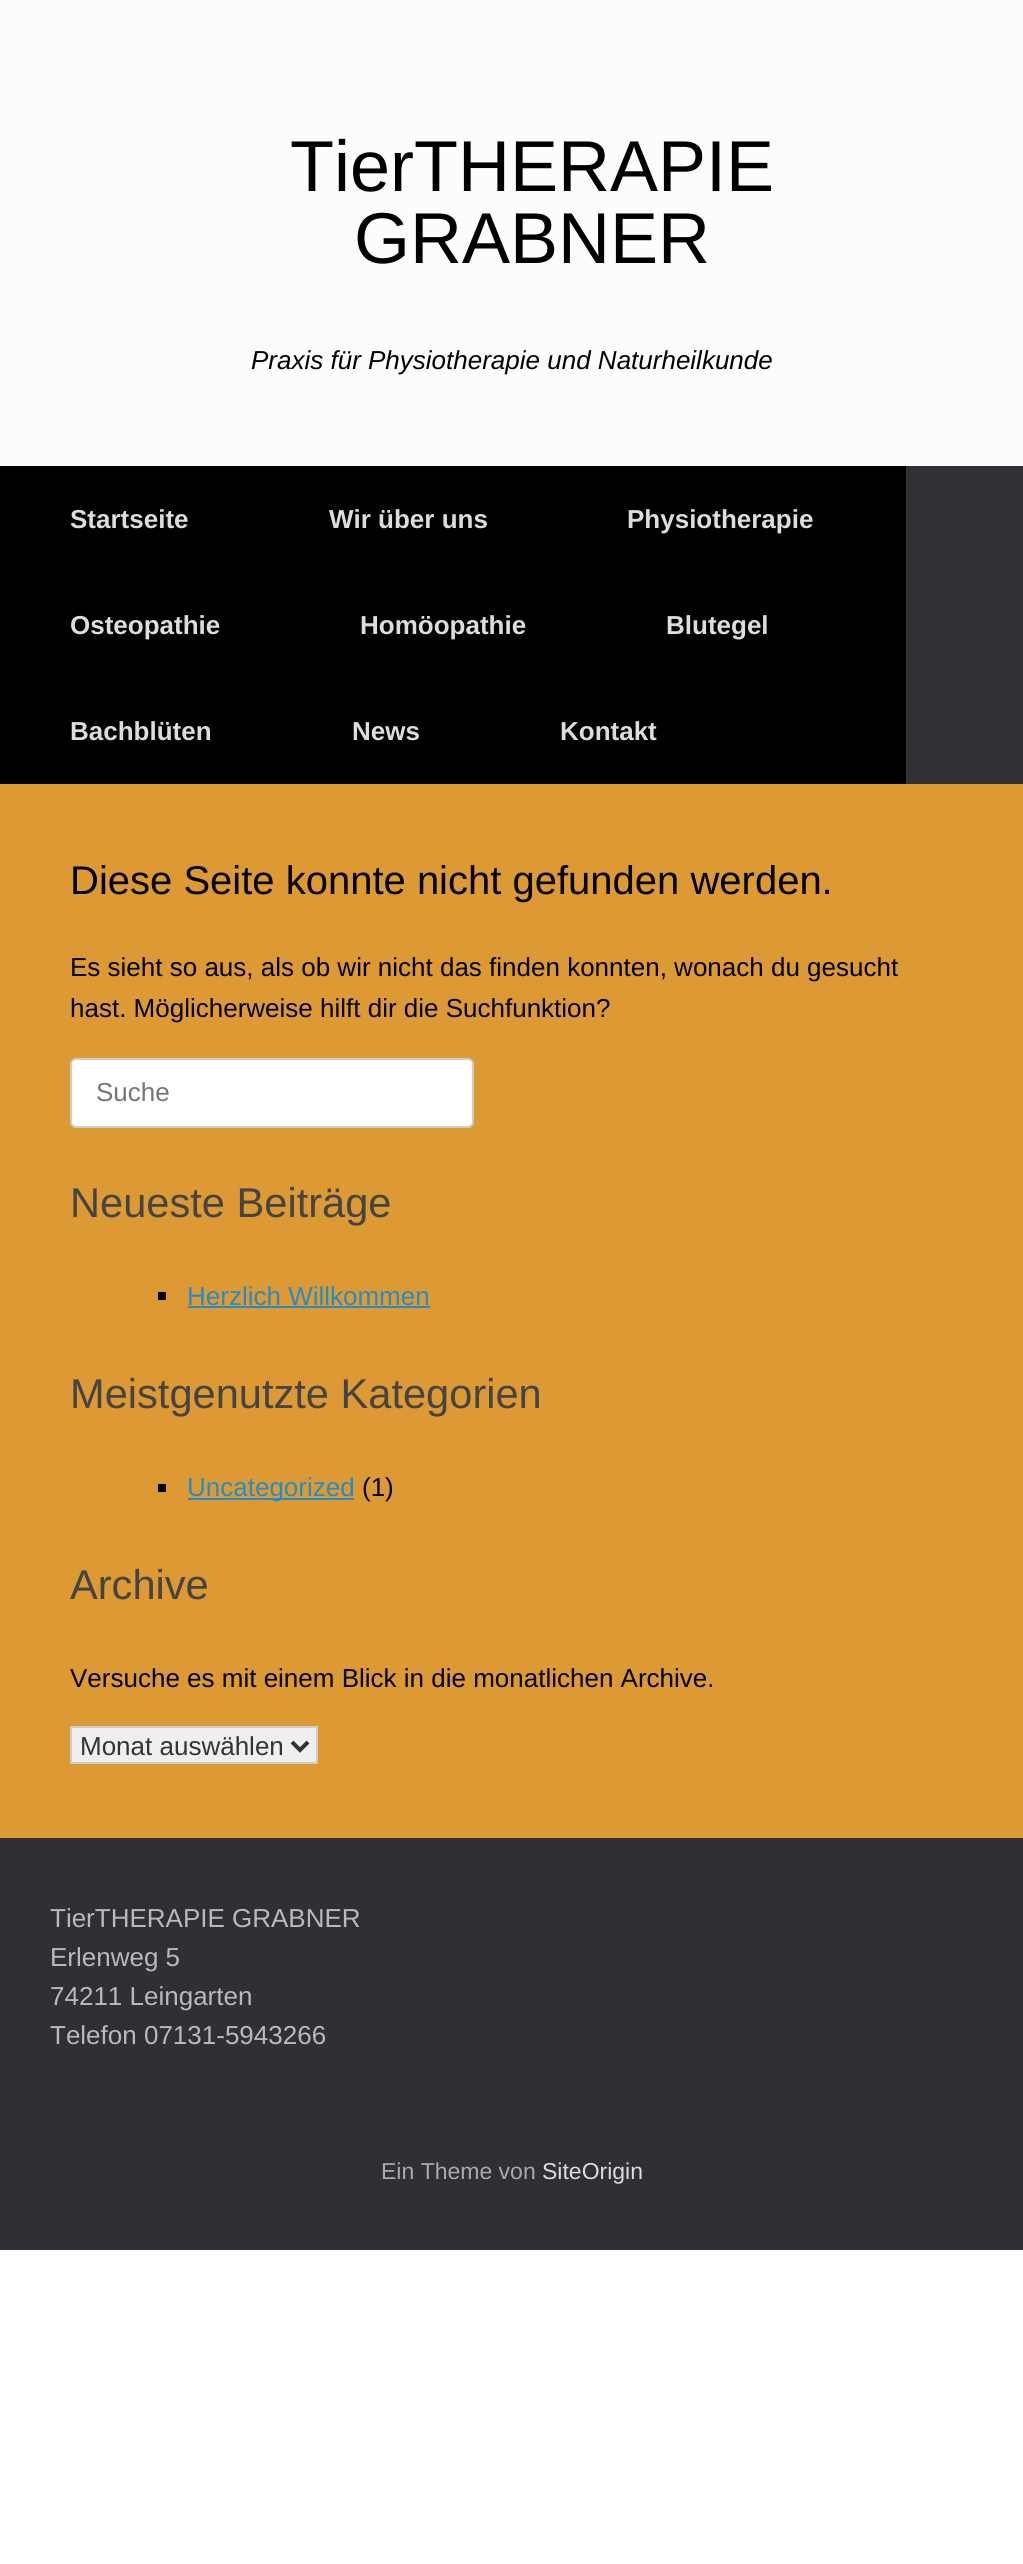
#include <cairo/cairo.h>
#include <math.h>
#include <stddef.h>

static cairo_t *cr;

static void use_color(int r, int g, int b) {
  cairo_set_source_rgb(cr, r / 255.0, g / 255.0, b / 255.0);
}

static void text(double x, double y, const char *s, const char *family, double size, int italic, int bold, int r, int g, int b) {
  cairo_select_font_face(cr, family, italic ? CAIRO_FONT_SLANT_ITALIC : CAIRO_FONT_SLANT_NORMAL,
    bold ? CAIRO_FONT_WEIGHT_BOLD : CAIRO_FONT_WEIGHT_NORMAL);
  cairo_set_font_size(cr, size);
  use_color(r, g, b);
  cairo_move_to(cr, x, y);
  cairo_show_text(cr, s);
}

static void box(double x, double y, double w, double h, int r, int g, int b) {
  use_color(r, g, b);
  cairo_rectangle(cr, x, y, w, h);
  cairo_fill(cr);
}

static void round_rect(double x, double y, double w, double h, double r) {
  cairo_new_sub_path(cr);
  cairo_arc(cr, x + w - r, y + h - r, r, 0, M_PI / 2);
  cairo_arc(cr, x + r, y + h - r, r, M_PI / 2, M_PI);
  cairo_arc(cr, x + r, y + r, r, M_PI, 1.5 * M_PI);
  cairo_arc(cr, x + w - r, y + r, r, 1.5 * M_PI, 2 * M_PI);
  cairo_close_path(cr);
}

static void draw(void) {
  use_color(255, 255, 255);
  cairo_paint(cr);
  box(0, 0, 1023, 466, 252, 252, 252);
  box(0, 466, 906, 318, 0, 0, 0);
  box(906, 466, 117, 318, 48, 49, 52);
  box(0, 784, 1023, 1054, 221, 153, 51);
  use_color(255, 255, 255);
  round_rect(71, 1059, 402, 68, 5);
  cairo_fill_preserve(cr);
  use_color(204, 204, 204);
  cairo_stroke(cr);
  box(158, 1292, 8, 8, 0, 0, 0);
  box(188, 1306, 242, 2, 36, 140, 200);
  box(158, 1484, 8, 8, 0, 0, 0);
  box(188, 1498, 166, 2, 36, 140, 200);
  use_color(239, 239, 239);
  cairo_rectangle(cr, 71, 1727, 246, 36);
  cairo_fill_preserve(cr);
  use_color(204, 204, 204);
  cairo_stroke(cr);
  cairo_new_path(cr);
  cairo_move_to(cr, 292, 1742);
  cairo_line_to(cr, 300, 1750);
  cairo_line_to(cr, 308, 1742);
  use_color(51, 51, 51);
  cairo_set_line_width(cr, 4);
  cairo_stroke(cr);
  box(0, 1838, 1023, 412, 47, 48, 51);
  text(290, 191, "TierTHERAPIE", "Liberation Sans", 72, 0, 0, 0, 0, 0);
  text(354, 263, "GRABNER", "Liberation Sans", 72, 0, 0, 0, 0, 0);
  text(251, 369, "Praxis für Physiotherapie und Naturheilkunde", "Liberation Sans", 26, 1, 0, 0, 0, 0);
  text(70, 528, "Startseite", "Liberation Sans", 26, 0, 1, 221, 221, 221);
  text(329, 528, "Wir über uns", "Liberation Sans", 26, 0, 1, 221, 221, 221);
  text(627, 528, "Physiotherapie", "Liberation Sans", 26, 0, 1, 221, 221, 221);
  text(70, 634, "Osteopathie", "Liberation Sans", 26, 0, 1, 221, 221, 221);
  text(360, 634, "Homöopathie", "Liberation Sans", 26, 0, 1, 221, 221, 221);
  text(666, 634, "Blutegel", "Liberation Sans", 26, 0, 1, 221, 221, 221);
  text(70, 740, "Bachblüten", "Liberation Sans", 26, 0, 1, 221, 221, 221);
  text(352, 740, "News", "Liberation Sans", 26, 0, 1, 221, 221, 221);
  text(560, 740, "Kontakt", "Liberation Sans", 26, 0, 1, 221, 221, 221);
  text(70, 894, "Diese Seite konnte nicht gefunden werden.", "Liberation Sans", 40, 0, 0, 0, 0, 0);
  text(70, 976, "Es sieht so aus, als ob wir nicht das finden konnten, wonach du gesucht", "Liberation Sans", 26, 0, 0, 0, 0, 0);
  text(70, 1017, "hast. Möglicherweise hilft dir die Suchfunktion?", "Liberation Sans", 26, 0, 0, 0, 0, 0);
  text(96, 1101, "Suche", "Liberation Sans", 26, 0, 0, 117, 117, 117);
  text(70, 1217, "Neueste Beiträge", "Liberation Sans", 41.6, 0, 0, 68, 68, 68);
  text(187, 1305, "Herzlich Willkommen", "Liberation Sans", 26, 0, 0, 36, 140, 200);
  text(70, 1408, "Meistgenutzte Kategorien", "Liberation Sans", 41.6, 0, 0, 68, 68, 68);
  text(187, 1496, "Uncategorized", "Liberation Sans", 26, 0, 0, 36, 140, 200);
  text(362, 1496, "(1)", "Liberation Sans", 26, 0, 0, 0, 0, 0);
  text(70, 1599, "Archive", "Liberation Sans", 41.6, 0, 0, 68, 68, 68);
  text(70, 1687, "Versuche es mit einem Blick in die monatlichen Archive.", "Liberation Sans", 26, 0, 0, 0, 0, 0);
  text(80, 1755, "Monat auswählen", "Liberation Sans", 26, 0, 0, 51, 51, 51);
  text(50, 1927, "TierTHERAPIE GRABNER", "Liberation Sans", 26, 0, 0, 185, 185, 185);
  text(50, 1966, "Erlenweg 5", "Liberation Sans", 26, 0, 0, 185, 185, 185);
  text(50, 2005, "74211 Leingarten", "Liberation Sans", 26, 0, 0, 185, 185, 185);
  text(50, 2044, "Telefon 07131-5943266", "Liberation Sans", 26, 0, 0, 185, 185, 185);
  text(381, 2179, "Ein Theme von", "Liberation Sans", 23, 0, 0, 170, 170, 170);
  text(542, 2179, "SiteOrigin", "Liberation Sans", 23, 0, 0, 221, 221, 221);
}

int main(void) {
  cairo_surface_t *surface = cairo_image_surface_create(CAIRO_FORMAT_RGB24, 1023, 2564);
  cr = cairo_create(surface);
  cairo_font_options_t *options = cairo_font_options_create();
  cairo_font_options_set_hint_metrics(options, CAIRO_HINT_METRICS_OFF);
  cairo_font_options_set_hint_style(options, CAIRO_HINT_STYLE_NONE);
  cairo_set_font_options(cr, options);
  cairo_set_miter_limit(cr, 4);
  draw();
  cairo_surface_write_to_png(surface, "out.png");
  cairo_font_options_destroy(options);
  cairo_destroy(cr);
  cairo_surface_destroy(surface);
  return 0;
}
